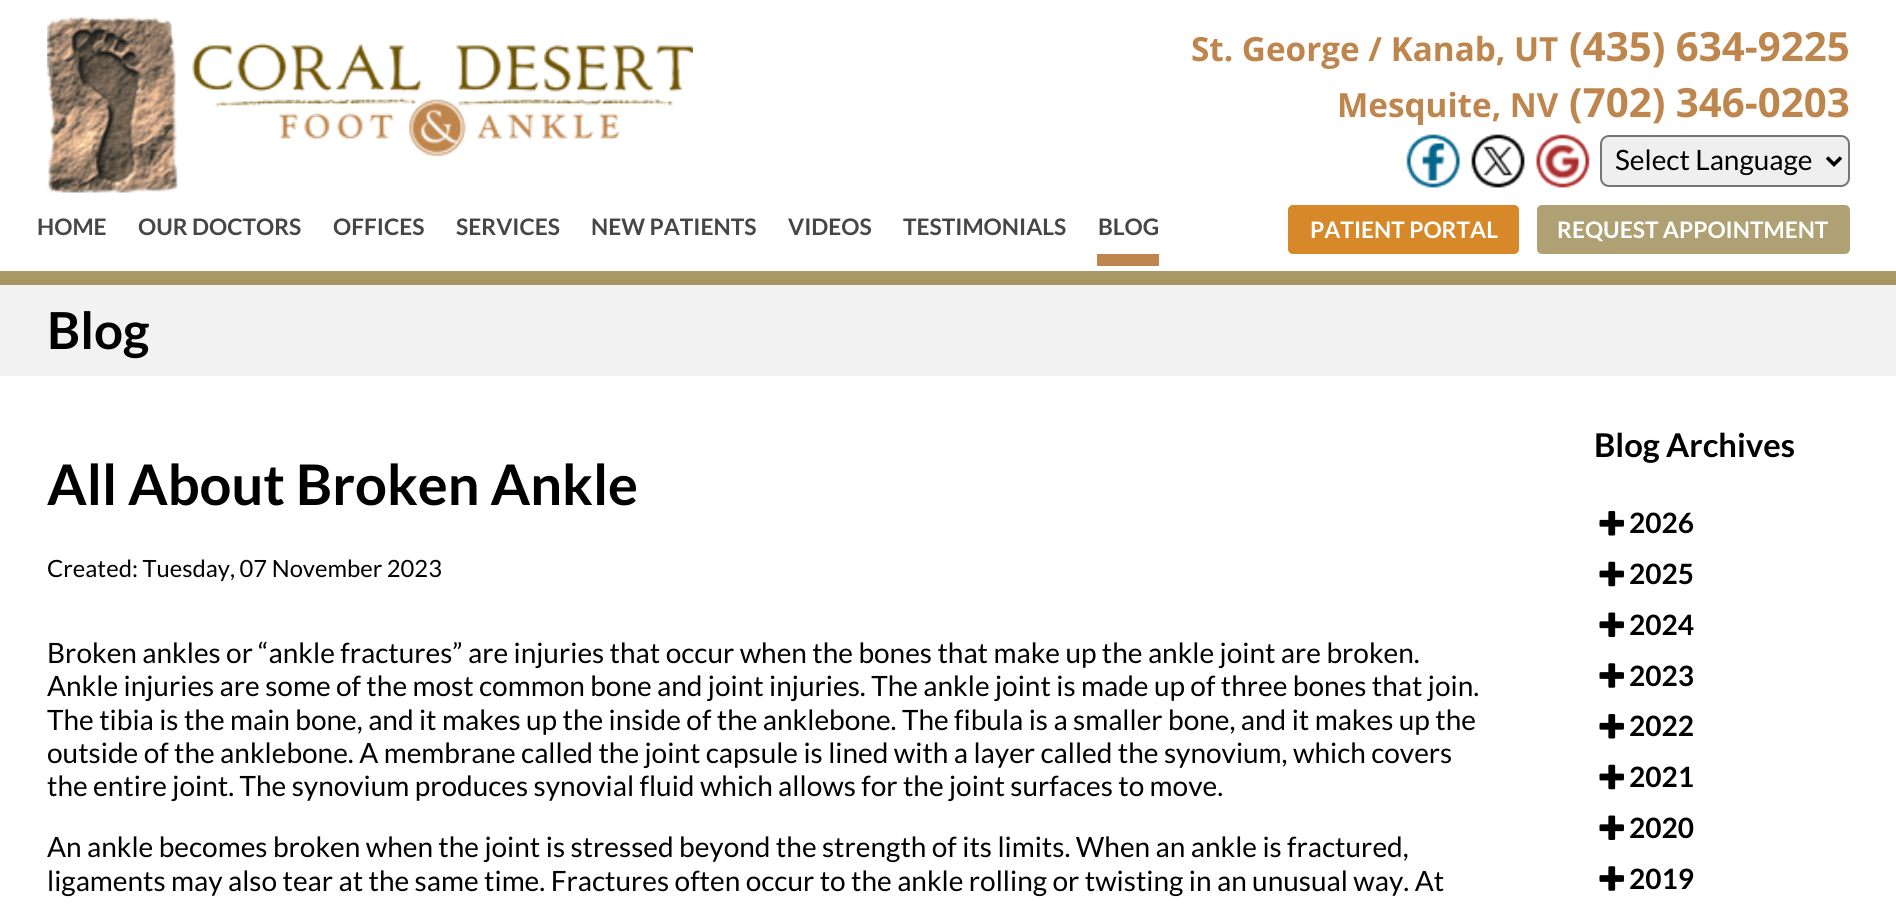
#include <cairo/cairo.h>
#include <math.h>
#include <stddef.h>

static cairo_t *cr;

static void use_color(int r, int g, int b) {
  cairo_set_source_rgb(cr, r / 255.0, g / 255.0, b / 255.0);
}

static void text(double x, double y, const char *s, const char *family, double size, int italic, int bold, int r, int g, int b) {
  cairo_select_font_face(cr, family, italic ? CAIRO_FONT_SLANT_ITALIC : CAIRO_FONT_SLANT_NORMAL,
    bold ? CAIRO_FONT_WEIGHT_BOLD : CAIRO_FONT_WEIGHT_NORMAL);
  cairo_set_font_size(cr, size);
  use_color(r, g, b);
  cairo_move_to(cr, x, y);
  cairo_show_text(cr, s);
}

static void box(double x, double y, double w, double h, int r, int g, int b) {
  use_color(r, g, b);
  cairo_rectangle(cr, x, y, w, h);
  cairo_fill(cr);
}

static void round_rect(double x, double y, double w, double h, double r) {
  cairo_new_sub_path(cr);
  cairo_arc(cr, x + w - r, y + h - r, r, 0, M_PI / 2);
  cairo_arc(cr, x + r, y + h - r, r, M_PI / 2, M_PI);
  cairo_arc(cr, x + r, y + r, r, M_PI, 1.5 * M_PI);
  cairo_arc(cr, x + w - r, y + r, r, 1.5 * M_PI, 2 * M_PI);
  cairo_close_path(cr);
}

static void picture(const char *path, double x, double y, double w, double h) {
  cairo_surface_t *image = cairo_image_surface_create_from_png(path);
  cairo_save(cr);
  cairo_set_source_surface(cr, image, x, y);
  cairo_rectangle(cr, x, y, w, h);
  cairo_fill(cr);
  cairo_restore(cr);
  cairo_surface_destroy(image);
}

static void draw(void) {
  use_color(255, 255, 255);
  cairo_paint(cr);
  box(0, 271, 1896, 9, 169, 154, 104);
  picture("img_01.png", 47, 17, 646, 176);
  picture("img_02.png", 1406, 134, 54, 54);
  picture("img_03.png", 1471, 134, 54, 54);
  picture("img_04.png", 1536, 134, 54, 54);
  use_color(239, 239, 239);
  round_rect(1601, 136, 248, 50, 8);
  cairo_fill_preserve(cr);
  use_color(118, 118, 118);
  cairo_stroke(cr);
  cairo_new_path(cr);
  cairo_move_to(cr, 1827, 157.5);
  cairo_line_to(cr, 1834, 164.5);
  cairo_line_to(cr, 1841, 157.5);
  use_color(0, 0, 0);
  cairo_set_line_width(cr, 3.5);
  cairo_stroke(cr);
  box(1097, 254, 62, 12, 190, 133, 76);
  use_color(215, 136, 40);
  round_rect(1288, 205, 231, 49, 5);
  cairo_fill(cr);
  use_color(175, 161, 115);
  round_rect(1537, 205, 313, 49, 5);
  cairo_fill(cr);
  box(0, 285, 1896, 91, 242, 242, 242);
  box(0, 280, 1896, 5, 164, 148, 99);
  picture("img_05.png", 1599, 511, 25, 25);
  picture("img_06.png", 1599, 561, 25, 26);
  picture("img_07.png", 1599, 612, 25, 25);
  picture("img_08.png", 1599, 663, 25, 25);
  picture("img_05.png", 1599, 714, 25, 25);
  picture("img_06.png", 1599, 764, 25, 26);
  picture("img_07.png", 1599, 815, 25, 25);
  picture("img_08.png", 1599, 866, 25, 25);
  text(1191, 61, "St. George / Kanab, UT", "Open Sans", 33.25, 0, 1, 190, 133, 76);
  text(1569, 61, "(435) 634-9225", "Open Sans", 40.25, 0, 1, 190, 133, 76);
  text(1337, 117, "Mesquite, NV", "Open Sans", 33.25, 0, 1, 190, 133, 76);
  text(1569, 117, "(702) 346-0203", "Open Sans", 40.25, 0, 1, 190, 133, 76);
  text(1615, 170, "Select Language", "Lato", 28, 0, 0, 0, 0, 0);
  text(37, 235, "HOME", "Lato", 22.75, 0, 1, 70, 70, 70);
  text(138, 235, "OUR DOCTORS", "Lato", 22.75, 0, 1, 70, 70, 70);
  text(333, 235, "OFFICES", "Lato", 22.75, 0, 1, 70, 70, 70);
  text(456, 235, "SERVICES", "Lato", 22.75, 0, 1, 70, 70, 70);
  text(591, 235, "NEW PATIENTS", "Lato", 22.75, 0, 1, 70, 70, 70);
  text(788, 235, "VIDEOS", "Lato", 22.75, 0, 1, 70, 70, 70);
  text(903, 235, "TESTIMONIALS", "Lato", 22.75, 0, 1, 70, 70, 70);
  text(1098, 235, "BLOG", "Lato", 22.75, 0, 1, 70, 70, 70);
  text(1310, 238, "PATIENT PORTAL", "Lato", 22.75, 0, 1, 255, 255, 255);
  text(1557, 238, "REQUEST APPOINTMENT", "Lato", 22.75, 0, 1, 255, 255, 255);
  text(47, 349, "Blog", "Lato", 51, 0, 1, 0, 0, 0);
  text(47, 505, "All About Broken Ankle", "Lato", 56, 0, 1, 0, 0, 0);
  text(47, 577, "Created: Tuesday, 07 November 2023", "Lato", 23.75, 0, 0, 0, 0, 0);
  text(47, 663, "Broken ankles or “ankle fractures” are injuries that occur when the bones that make up the ankle joint are broken.", "Lato", 28, 0, 0, 0, 0, 0);
  text(47, 696, "Ankle injuries are some of the most common bone and joint injuries. The ankle joint is made up of three bones that join.", "Lato", 28, 0, 0, 0, 0, 0);
  text(47, 730, "The tibia is the main bone, and it makes up the inside of the anklebone. The fibula is a smaller bone, and it makes up the", "Lato", 28, 0, 0, 0, 0, 0);
  text(47, 763, "outside of the anklebone. A membrane called the joint capsule is lined with a layer called the synovium, which covers", "Lato", 28, 0, 0, 0, 0, 0);
  text(47, 796, "the entire joint. The synovium produces synovial fluid which allows for the joint surfaces to move.", "Lato", 28, 0, 0, 0, 0, 0);
  text(47, 857, "An ankle becomes broken when the joint is stressed beyond the strength of its limits. When an ankle is fractured,", "Lato", 28, 0, 0, 0, 0, 0);
  text(47, 891, "ligaments may also tear at the same time. Fractures often occur to the ankle rolling or twisting in an unusual way. At", "Lato", 28, 0, 0, 0, 0, 0);
  text(1594, 457, "Blog Archives", "Lato", 32.75, 0, 1, 0, 0, 0);
  text(1629, 533, "2026", "Lato", 28, 0, 1, 0, 0, 0);
  text(1629, 584, "2025", "Lato", 28, 0, 1, 0, 0, 0);
  text(1629, 635, "2024", "Lato", 28, 0, 1, 0, 0, 0);
  text(1629, 686, "2023", "Lato", 28, 0, 1, 0, 0, 0);
  text(1629, 736, "2022", "Lato", 28, 0, 1, 0, 0, 0);
  text(1629, 787, "2021", "Lato", 28, 0, 1, 0, 0, 0);
  text(1629, 838, "2020", "Lato", 28, 0, 1, 0, 0, 0);
  text(1629, 889, "2019", "Lato", 28, 0, 1, 0, 0, 0);
}

int main(void) {
  cairo_surface_t *surface = cairo_image_surface_create(CAIRO_FORMAT_RGB24, 1896, 915);
  cr = cairo_create(surface);
  cairo_font_options_t *options = cairo_font_options_create();
  cairo_font_options_set_hint_metrics(options, CAIRO_HINT_METRICS_OFF);
  cairo_font_options_set_hint_style(options, CAIRO_HINT_STYLE_NONE);
  cairo_set_font_options(cr, options);
  cairo_set_miter_limit(cr, 4);
  draw();
  cairo_surface_write_to_png(surface, "out.png");
  cairo_font_options_destroy(options);
  cairo_destroy(cr);
  cairo_surface_destroy(surface);
  return 0;
}
